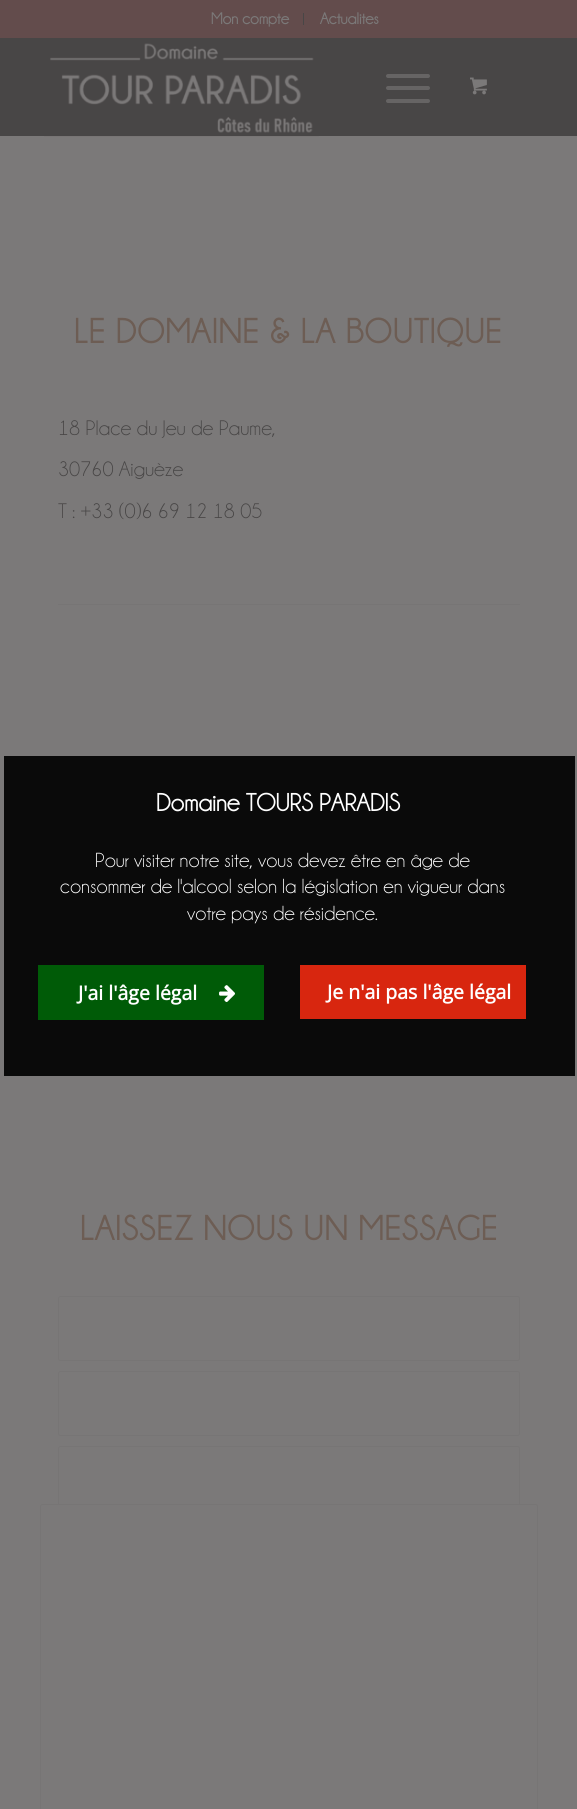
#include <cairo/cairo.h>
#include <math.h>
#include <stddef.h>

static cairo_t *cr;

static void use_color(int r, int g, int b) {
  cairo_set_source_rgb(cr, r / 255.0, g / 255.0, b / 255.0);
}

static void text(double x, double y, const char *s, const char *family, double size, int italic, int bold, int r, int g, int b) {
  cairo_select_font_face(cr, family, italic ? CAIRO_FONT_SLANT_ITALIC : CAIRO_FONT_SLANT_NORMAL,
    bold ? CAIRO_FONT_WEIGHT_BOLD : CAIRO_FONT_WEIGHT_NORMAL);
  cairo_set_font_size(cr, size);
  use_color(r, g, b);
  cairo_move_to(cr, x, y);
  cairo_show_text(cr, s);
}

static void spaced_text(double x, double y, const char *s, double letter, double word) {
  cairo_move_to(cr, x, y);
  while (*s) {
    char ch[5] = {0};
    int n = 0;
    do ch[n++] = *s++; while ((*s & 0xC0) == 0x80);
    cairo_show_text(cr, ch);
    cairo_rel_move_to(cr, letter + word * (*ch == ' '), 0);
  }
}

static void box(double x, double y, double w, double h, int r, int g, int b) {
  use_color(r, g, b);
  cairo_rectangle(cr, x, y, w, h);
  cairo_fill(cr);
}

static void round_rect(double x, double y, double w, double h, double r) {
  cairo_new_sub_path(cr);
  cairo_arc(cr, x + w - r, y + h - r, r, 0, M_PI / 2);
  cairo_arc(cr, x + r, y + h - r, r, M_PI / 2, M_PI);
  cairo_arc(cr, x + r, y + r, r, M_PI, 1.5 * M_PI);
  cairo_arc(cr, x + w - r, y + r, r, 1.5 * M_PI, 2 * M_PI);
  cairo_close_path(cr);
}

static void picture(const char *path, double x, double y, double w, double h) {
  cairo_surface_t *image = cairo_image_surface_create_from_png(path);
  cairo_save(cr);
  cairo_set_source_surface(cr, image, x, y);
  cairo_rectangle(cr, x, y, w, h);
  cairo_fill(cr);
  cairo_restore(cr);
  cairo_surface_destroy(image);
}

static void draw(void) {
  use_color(123, 121, 121);
  cairo_paint(cr);
  box(0, 0, 577, 38, 99, 76, 76);
  box(303, 13, 1, 12, 72, 70, 70);
  box(0, 38, 577, 98, 72, 70, 70);
  picture("img_01.png", 44, 43, 275, 94);
  use_color(102, 100, 100);
  round_rect(386, 86, 44, 4, 2);
  cairo_fill(cr);
  round_rect(386, 74, 44, 4, 2);
  cairo_fill(cr);
  round_rect(386, 99, 44, 4, 2);
  cairo_fill(cr);
  picture("img_02.png", 470, 77, 17, 18);
  box(58, 604, 462, 1, 119, 117, 117);
  round_rect(58.5, 1296.5, 461, 64, 2);
  cairo_set_line_width(cr, 1);
  cairo_stroke(cr);
  round_rect(58.5, 1371.5, 461, 64, 2);
  cairo_stroke(cr);
  round_rect(58.5, 1446.5, 461, 64, 2);
  cairo_stroke(cr);
  use_color(123, 121, 121);
  round_rect(40.5, 1504.5, 497, 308, 2);
  cairo_fill_preserve(cr);
  use_color(119, 117, 117);
  cairo_stroke(cr);
  box(4, 756, 571, 320, 10, 10, 10);
  box(38, 965, 226, 55, 0, 91, 7);
  picture("img_03.png", 219, 985, 16, 17);
  box(300, 965, 226, 54, 216, 38, 15);
  text(211, 24, "Mon compte", "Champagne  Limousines", 16.25, 0, 1, 123, 121, 121);
  text(320, 24, "Actualites", "Champagne  Limousines", 16.25, 0, 1, 123, 121, 121);
  cairo_set_font_size(cr, 35);
  use_color(109, 93, 84);
  spaced_text(74, 343, "LE DOMAINE & LA BOUTIQUE", 1.25, 0);
  text(58, 435, "18 Place du Jeu de Paume,", "Champagne  Limousines", 21.25, 0, 0, 72, 70, 70);
  text(58, 476, "30760 Aiguèze", "Champagne  Limousines", 21.25, 0, 0, 72, 70, 70);
  text(58, 518, "T : +33 (0)6 69 12 18 05", "Champagne  Limousines", 21.25, 0, 0, 72, 70, 70);
  cairo_select_font_face(cr, "Champagne  Limousines", CAIRO_FONT_SLANT_NORMAL, CAIRO_FONT_WEIGHT_BOLD);
  cairo_set_font_size(cr, 35);
  use_color(109, 93, 84);
  spaced_text(80, 1240, "LAISSEZ NOUS UN MESSAGE", 1.25, 0);
  text(156, 811, "Domaine TOURS PARADIS", "Champagne  Limousines", 25.1, 0, 1, 255, 255, 255);
  text(95, 867, "Pour visiter notre site, vous devez être en âge de", "Champagne  Limousines", 20.6, 0, 0, 255, 255, 255);
  text(60, 893, "consommer de l'alcool selon la législation en vigueur dans", "Champagne  Limousines", 20.6, 0, 0, 255, 255, 255);
  text(187, 920, "votre pays de résidence.", "Champagne  Limousines", 20.6, 0, 0, 255, 255, 255);
  text(78, 1000, "J'ai l'âge légal", "Open Sans", 19.5, 0, 1, 255, 255, 255);
  text(327, 999, "Je n'ai pas l'âge légal", "Open Sans", 19.5, 0, 1, 255, 255, 255);
}

int main(void) {
  cairo_surface_t *surface = cairo_image_surface_create(CAIRO_FORMAT_RGB24, 577, 1809);
  cr = cairo_create(surface);
  cairo_font_options_t *options = cairo_font_options_create();
  cairo_font_options_set_hint_metrics(options, CAIRO_HINT_METRICS_OFF);
  cairo_font_options_set_hint_style(options, CAIRO_HINT_STYLE_NONE);
  cairo_set_font_options(cr, options);
  cairo_set_miter_limit(cr, 4);
  draw();
  cairo_surface_write_to_png(surface, "out.png");
  cairo_font_options_destroy(options);
  cairo_destroy(cr);
  cairo_surface_destroy(surface);
  return 0;
}
